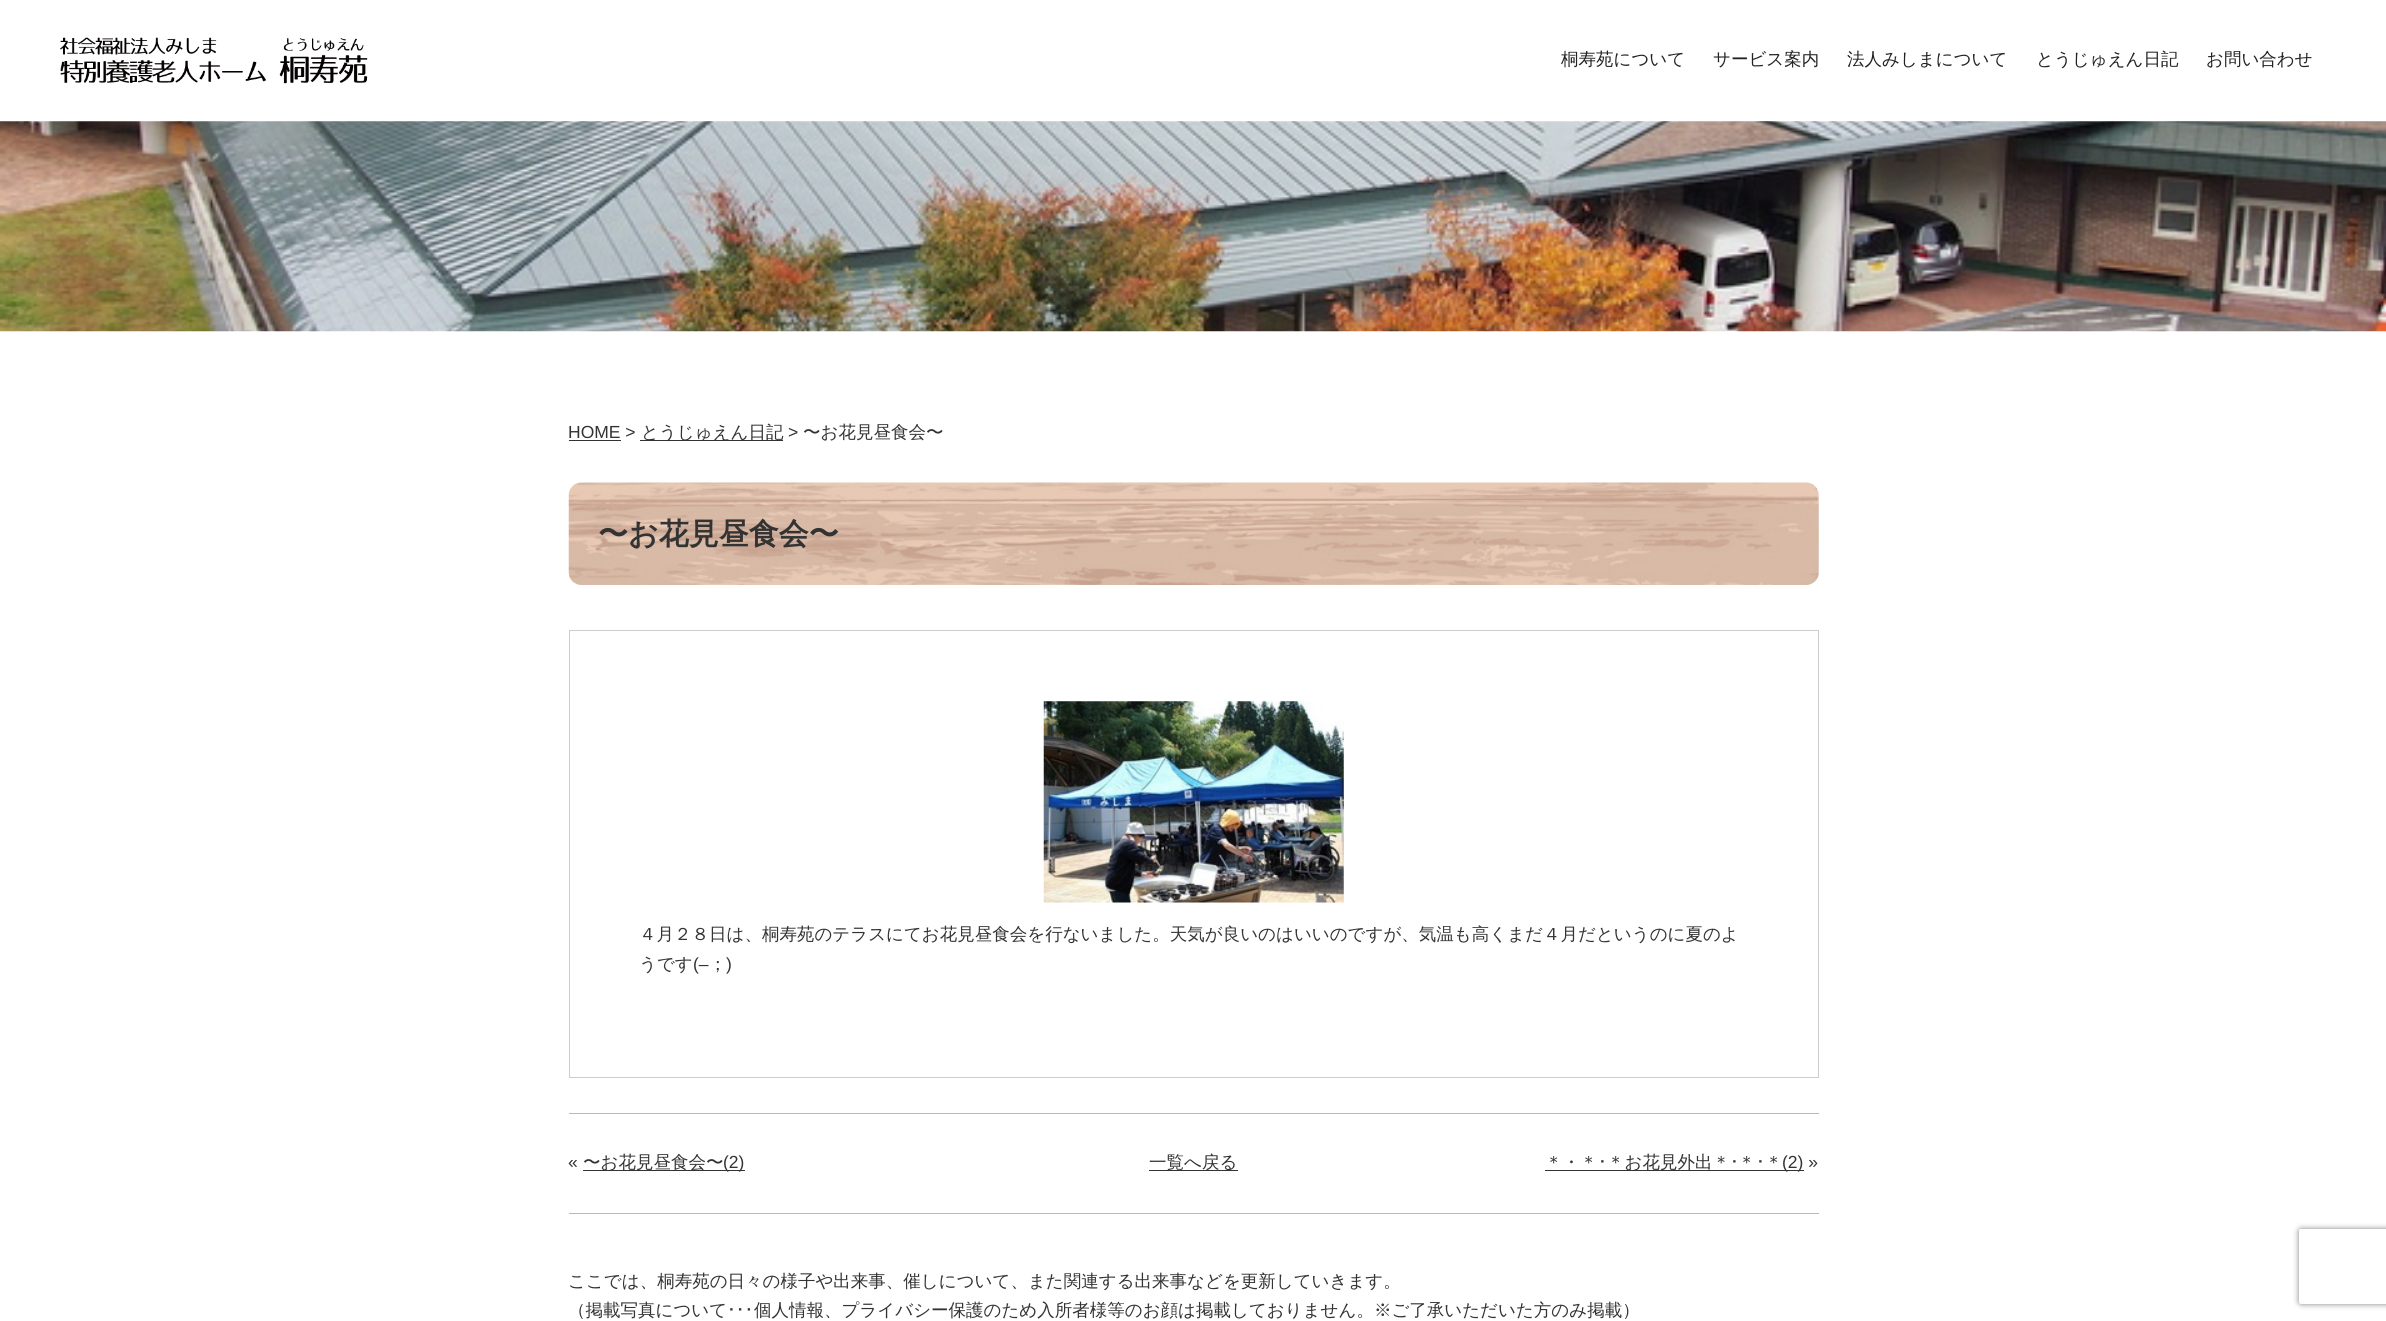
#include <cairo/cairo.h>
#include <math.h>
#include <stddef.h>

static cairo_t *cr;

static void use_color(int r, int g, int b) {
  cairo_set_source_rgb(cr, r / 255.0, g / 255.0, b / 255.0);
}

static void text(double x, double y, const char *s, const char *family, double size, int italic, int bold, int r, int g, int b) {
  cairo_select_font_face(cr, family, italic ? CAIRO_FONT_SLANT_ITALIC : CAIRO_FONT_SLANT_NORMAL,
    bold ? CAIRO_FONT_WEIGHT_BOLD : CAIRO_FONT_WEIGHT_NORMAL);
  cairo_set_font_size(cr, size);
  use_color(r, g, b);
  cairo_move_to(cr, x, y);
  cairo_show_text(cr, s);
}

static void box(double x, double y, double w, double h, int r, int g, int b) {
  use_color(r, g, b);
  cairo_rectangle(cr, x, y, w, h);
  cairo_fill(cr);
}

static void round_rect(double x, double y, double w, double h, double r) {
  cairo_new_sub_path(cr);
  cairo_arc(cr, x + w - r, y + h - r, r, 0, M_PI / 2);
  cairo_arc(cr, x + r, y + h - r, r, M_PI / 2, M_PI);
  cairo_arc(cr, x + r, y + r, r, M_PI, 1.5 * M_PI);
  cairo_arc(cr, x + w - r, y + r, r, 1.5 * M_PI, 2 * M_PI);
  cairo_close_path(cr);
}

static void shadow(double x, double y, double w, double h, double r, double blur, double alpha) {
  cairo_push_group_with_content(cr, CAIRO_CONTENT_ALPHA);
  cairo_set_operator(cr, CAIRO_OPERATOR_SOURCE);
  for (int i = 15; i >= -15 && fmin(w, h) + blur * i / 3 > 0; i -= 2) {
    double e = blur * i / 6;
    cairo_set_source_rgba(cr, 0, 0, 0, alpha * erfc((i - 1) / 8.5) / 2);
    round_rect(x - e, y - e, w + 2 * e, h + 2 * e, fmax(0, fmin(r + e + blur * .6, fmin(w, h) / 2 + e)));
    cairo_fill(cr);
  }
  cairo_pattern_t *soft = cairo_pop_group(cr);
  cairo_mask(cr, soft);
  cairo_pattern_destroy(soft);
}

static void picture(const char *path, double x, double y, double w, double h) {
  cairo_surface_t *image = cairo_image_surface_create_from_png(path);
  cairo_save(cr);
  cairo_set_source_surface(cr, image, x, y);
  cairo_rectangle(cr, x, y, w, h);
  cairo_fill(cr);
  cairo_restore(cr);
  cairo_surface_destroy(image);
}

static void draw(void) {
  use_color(255, 255, 255);
  cairo_paint(cr);
  picture("img_01.png", 60, 37, 308, 47);
  picture("img_02.png", 0, 121, 2386, 211);
  box(569, 440, 52, 1, 51, 51, 51);
  box(640, 440, 143, 1, 51, 51, 51);
  picture("img_03.png", 568, 482, 1251, 103);
  cairo_rectangle(cr, 569.5, 630.5, 1249, 447);
  use_color(205, 205, 205);
  cairo_set_line_width(cr, 1);
  cairo_stroke(cr);
  picture("img_04.png", 1043, 701, 301, 202);
  box(569, 1113, 1250, 1, 186, 186, 186);
  box(569, 1213, 1250, 1, 186, 186, 186);
  box(583, 1170, 162, 1, 51, 51, 51);
  box(1149, 1170, 89, 1, 51, 51, 51);
  box(1545, 1170, 259, 1, 51, 51, 51);
  cairo_save(cr);
  cairo_set_fill_rule(cr, CAIRO_FILL_RULE_EVEN_ODD);
  cairo_new_path(cr);
  cairo_move_to(cr, 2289, 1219);
  cairo_line_to(cr, 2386, 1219);
  cairo_line_to(cr, 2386, 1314);
  cairo_line_to(cr, 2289, 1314);
  cairo_close_path(cr);
  cairo_move_to(cr, 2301.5, 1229);
  cairo_line_to(cr, 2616.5, 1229);
  cairo_curve_to(cr, 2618, 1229, 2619, 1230, 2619, 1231.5);
  cairo_line_to(cr, 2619, 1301.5);
  cairo_curve_to(cr, 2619, 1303, 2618, 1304, 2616.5, 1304);
  cairo_line_to(cr, 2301.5, 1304);
  cairo_curve_to(cr, 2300, 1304, 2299, 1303, 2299, 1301.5);
  cairo_line_to(cr, 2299, 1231.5);
  cairo_curve_to(cr, 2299, 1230, 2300, 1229, 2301.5, 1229);
  cairo_close_path(cr);
  cairo_clip(cr);
  use_color(128, 128, 128);
  shadow(2299, 1229, 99, 75, 2.5, 3, 1);
  cairo_restore(cr);
  text(1561, 65, "桐寿苑について", "WenQuanYi Zen Hei Medium", 17.5, 0, 0, 34, 34, 34);
  text(1713, 65, "サービス案内", "WenQuanYi Zen Hei Medium", 17.5, 0, 0, 34, 34, 34);
  text(1847, 65, "法人みしまについて", "WenQuanYi Zen Hei Medium", 17.5, 0, 0, 34, 34, 34);
  text(2036, 65, "とうじゅえん日記", "WenQuanYi Zen Hei Medium", 17.5, 0, 0, 34, 34, 34);
  text(2206, 65, "お問い合わせ", "WenQuanYi Zen Hei Medium", 17.5, 0, 0, 34, 34, 34);
  text(568, 438, "HOME >", "Liberation Sans", 17.5, 0, 0, 51, 51, 51);
  text(641, 438, "とうじゅえん日記", "WenQuanYi Zen Hei Medium", 17.5, 0, 0, 51, 51, 51);
  text(788, 438, ">", "Liberation Sans", 17.5, 0, 0, 51, 51, 51);
  text(803, 438, "〜お花見昼食会〜", "WenQuanYi Zen Hei Medium", 17.5, 0, 0, 51, 51, 51);
  text(598, 544, "〜お花見昼食会〜", "WenQuanYi Zen Hei", 30, 0, 1, 51, 51, 51);
  text(639, 940, "４月２８日は、桐寿苑のテラスにてお花見昼食会を行ないました。天気が良いのはいいのですが、気温も高くまだ４月だというのに夏のよ", "WenQuanYi Zen Hei Medium", 17.5, 0, 0, 51, 51, 51);
  text(639, 970, "うです", "WenQuanYi Zen Hei Medium", 17.5, 0, 0, 51, 51, 51);
  text(693, 970, "(–", "Liberation Sans", 17.5, 0, 0, 51, 51, 51);
  text(709, 970, "；", "WenQuanYi Zen Hei Medium", 17.5, 0, 0, 51, 51, 51);
  text(726, 970, ")", "Liberation Sans", 17.5, 0, 0, 51, 51, 51);
  text(568, 1168, "«", "Liberation Sans", 17.5, 0, 0, 51, 51, 51);
  text(583, 1168, "〜お花見昼食会〜", "WenQuanYi Zen Hei Medium", 17.5, 0, 0, 51, 51, 51);
  text(723, 1168, "(2)", "Liberation Sans", 17.5, 0, 0, 51, 51, 51);
  text(1149, 1168, "一覧へ戻る", "WenQuanYi Zen Hei Medium", 17.5, 0, 0, 51, 51, 51);
  text(1545, 1168, "＊・＊", "WenQuanYi Zen Hei Medium", 17.5, 0, 0, 51, 51, 51);
  text(1598, 1168, "･", "IPAPGothic", 17.5, 0, 0, 51, 51, 51);
  text(1607, 1168, "＊お花見外出＊", "WenQuanYi Zen Hei Medium", 17.5, 0, 0, 51, 51, 51);
  text(1730, 1168, "･", "IPAPGothic", 17.5, 0, 0, 51, 51, 51);
  text(1738, 1168, "＊", "WenQuanYi Zen Hei Medium", 17.5, 0, 0, 51, 51, 51);
  text(1756, 1168, "･", "IPAPGothic", 17.5, 0, 0, 51, 51, 51);
  text(1765, 1168, "＊", "WenQuanYi Zen Hei Medium", 17.5, 0, 0, 51, 51, 51);
  text(1782, 1168, "(2) »", "Liberation Sans", 17.5, 0, 0, 51, 51, 51);
  text(568, 1287, "ここでは、桐寿苑の日々の様子や出来事、催しについて、また関連する出来事などを更新していきます。", "WenQuanYi Zen Hei Medium", 17.5, 0, 0, 51, 51, 51);
  text(568, 1316, "（掲載写真について", "WenQuanYi Zen Hei Medium", 17.5, 0, 0, 51, 51, 51);
  text(727, 1316, "･･･", "IPAPGothic", 17.5, 0, 0, 51, 51, 51);
  text(754, 1316, "個人情報、プライバシー保護のため入所者様等のお顔は掲載しておりません。※ご了承いただいた方のみ掲載）", "WenQuanYi Zen Hei Medium", 17.5, 0, 0, 51, 51, 51);
}

int main(void) {
  cairo_surface_t *surface = cairo_image_surface_create(CAIRO_FORMAT_RGB24, 2386, 1321);
  cr = cairo_create(surface);
  cairo_font_options_t *options = cairo_font_options_create();
  cairo_font_options_set_hint_metrics(options, CAIRO_HINT_METRICS_OFF);
  cairo_font_options_set_hint_style(options, CAIRO_HINT_STYLE_NONE);
  cairo_set_font_options(cr, options);
  cairo_set_miter_limit(cr, 4);
  draw();
  cairo_surface_write_to_png(surface, "out.png");
  cairo_font_options_destroy(options);
  cairo_destroy(cr);
  cairo_surface_destroy(surface);
  return 0;
}
